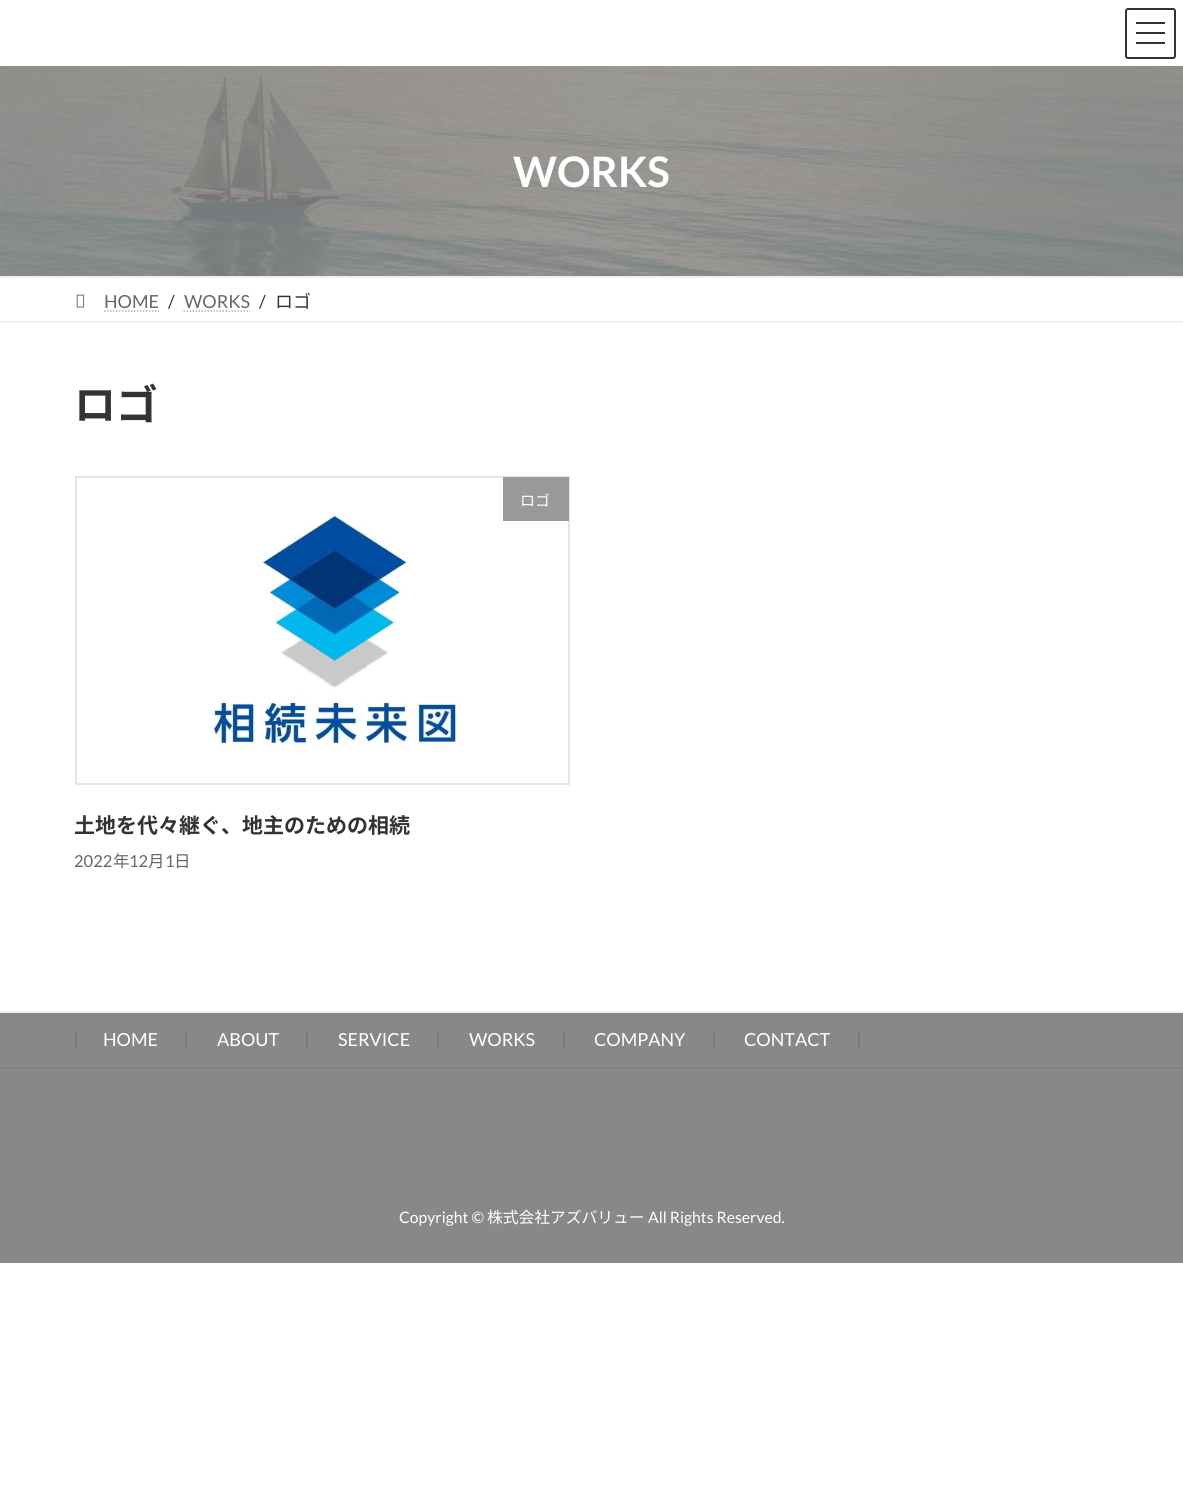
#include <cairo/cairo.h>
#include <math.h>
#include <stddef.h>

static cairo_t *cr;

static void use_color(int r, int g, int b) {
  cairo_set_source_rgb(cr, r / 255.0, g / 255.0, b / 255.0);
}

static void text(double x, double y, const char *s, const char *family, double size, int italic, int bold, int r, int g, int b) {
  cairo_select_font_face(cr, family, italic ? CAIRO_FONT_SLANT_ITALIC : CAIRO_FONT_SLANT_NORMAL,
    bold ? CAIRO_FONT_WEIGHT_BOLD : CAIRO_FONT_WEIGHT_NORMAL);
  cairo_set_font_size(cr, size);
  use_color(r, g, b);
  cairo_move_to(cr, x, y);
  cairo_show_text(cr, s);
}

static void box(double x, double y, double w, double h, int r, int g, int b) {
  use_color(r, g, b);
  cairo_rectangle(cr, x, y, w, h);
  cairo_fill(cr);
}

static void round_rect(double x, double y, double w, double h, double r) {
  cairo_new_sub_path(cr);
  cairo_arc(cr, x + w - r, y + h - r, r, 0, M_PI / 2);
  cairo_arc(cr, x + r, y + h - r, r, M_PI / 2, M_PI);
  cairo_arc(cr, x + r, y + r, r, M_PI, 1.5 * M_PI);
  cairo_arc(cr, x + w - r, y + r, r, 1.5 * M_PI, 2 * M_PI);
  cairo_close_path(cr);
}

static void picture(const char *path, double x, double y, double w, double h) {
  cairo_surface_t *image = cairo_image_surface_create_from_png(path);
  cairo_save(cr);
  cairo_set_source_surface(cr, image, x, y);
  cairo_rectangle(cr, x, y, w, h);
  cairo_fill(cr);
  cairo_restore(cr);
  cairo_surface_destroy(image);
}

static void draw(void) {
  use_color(255, 255, 255);
  cairo_paint(cr);
  box(1136, 22, 29, 2, 51, 51, 51);
  box(1136, 32, 29, 2, 51, 51, 51);
  box(1136, 42, 29, 2, 51, 51, 51);
  round_rect(1126, 9, 49, 49, 2);
  cairo_stroke(cr);
  picture("img_01.png", 0, 66, 1183, 210);
  box(0, 276, 1183, 2, 240, 240, 240);
  box(0, 321, 1183, 2, 240, 240, 240);
  picture("img_02.png", 76, 294, 9, 14);
  cairo_new_path(cr);
  cairo_move_to(cr, 104, 311);
  cairo_line_to(cr, 159, 311);
  use_color(179, 179, 179);
  cairo_set_line_width(cr, 1.5);
  cairo_set_dash(cr, (double[]){1.5, 1.5}, 2, 0);
  cairo_stroke(cr);
  cairo_new_path(cr);
  cairo_move_to(cr, 183.5, 311);
  cairo_line_to(cr, 250, 311);
  cairo_stroke(cr);
  picture("img_03.png", 209, 514, 255, 237);
  cairo_rectangle(cr, 76, 477, 493, 307);
  use_color(229, 229, 229);
  cairo_set_line_width(cr, 2);
  cairo_set_dash(cr, NULL, 0, 0);
  cairo_stroke(cr);
  box(503, 477, 66, 44, 153, 153, 153);
  box(0, 1013, 1183, 250, 136, 136, 136);
  box(0, 1011, 1183, 2, 239, 239, 239);
  box(0, 1067, 1183, 2, 128, 128, 128);
  box(185, 1031, 2, 18, 120, 120, 120);
  box(75, 1031, 2, 18, 120, 120, 120);
  box(306, 1031, 2, 18, 120, 120, 120);
  box(437, 1031, 2, 18, 120, 120, 120);
  box(563, 1031, 2, 18, 120, 120, 120);
  box(713, 1031, 2, 18, 120, 120, 120);
  box(858, 1031, 2, 18, 120, 120, 120);
  text(513, 187, "WORKS", "Lato", 42, 0, 1, 255, 255, 255);
  text(104, 308, "HOME", "Lato", 18, 0, 0, 102, 102, 102);
  text(168, 308, "/", "Lato", 18, 0, 0, 51, 51, 51);
  text(184, 308, "WORKS", "Lato", 18, 0, 0, 102, 102, 102);
  text(259, 308, "/", "Lato", 18, 0, 0, 51, 51, 51);
  text(275, 308, "ロゴ", "Noto Sans JP", 18, 0, 0, 51, 51, 51);
  text(74, 420, "ロゴ", "Noto Sans JP", 42, 0, 1, 51, 51, 51);
  text(520, 506, "ロゴ", "Noto Sans JP", 15, 0, 0, 255, 255, 255);
  text(74, 833, "土地を代々継ぐ、地主のための相続", "Noto Sans JP", 21, 0, 1, 51, 51, 51);
  text(74, 867, "2022", "Lato", 16.5, 0, 0, 102, 102, 102);
  text(113, 867, "年", "Noto Sans JP", 16.5, 0, 0, 102, 102, 102);
  text(129, 867, "12", "Lato", 16.5, 0, 0, 102, 102, 102);
  text(148, 867, "月", "Noto Sans JP", 16.5, 0, 0, 102, 102, 102);
  text(165, 867, "1", "Lato", 16.5, 0, 0, 102, 102, 102);
  text(174, 867, "日", "Noto Sans JP", 16.5, 0, 0, 102, 102, 102);
  text(103, 1046, "HOME", "Lato", 18, 0, 0, 255, 255, 255);
  text(217, 1046, "ABOUT", "Lato", 18, 0, 0, 255, 255, 255);
  text(338, 1046, "SERVICE", "Lato", 18, 0, 0, 255, 255, 255);
  text(469, 1046, "WORKS", "Lato", 18, 0, 0, 255, 255, 255);
  text(594, 1046, "COMPANY", "Lato", 18, 0, 0, 255, 255, 255);
  text(744, 1046, "CONTACT", "Lato", 18, 0, 0, 255, 255, 255);
  text(399, 1223, "Copyright ©", "Lato", 15.75, 0, 0, 255, 255, 255);
  text(487, 1223, "株式会社アズバリュー", "Noto Sans JP", 15.75, 0, 0, 255, 255, 255);
  text(648, 1223, "All Rights Reserved.", "Lato", 15.75, 0, 0, 255, 255, 255);
}

int main(void) {
  cairo_surface_t *surface = cairo_image_surface_create(CAIRO_FORMAT_RGB24, 1183, 1496);
  cr = cairo_create(surface);
  cairo_font_options_t *options = cairo_font_options_create();
  cairo_font_options_set_hint_metrics(options, CAIRO_HINT_METRICS_OFF);
  cairo_font_options_set_hint_style(options, CAIRO_HINT_STYLE_NONE);
  cairo_set_font_options(cr, options);
  cairo_set_miter_limit(cr, 4);
  draw();
  cairo_surface_write_to_png(surface, "out.png");
  cairo_font_options_destroy(options);
  cairo_destroy(cr);
  cairo_surface_destroy(surface);
  return 0;
}
